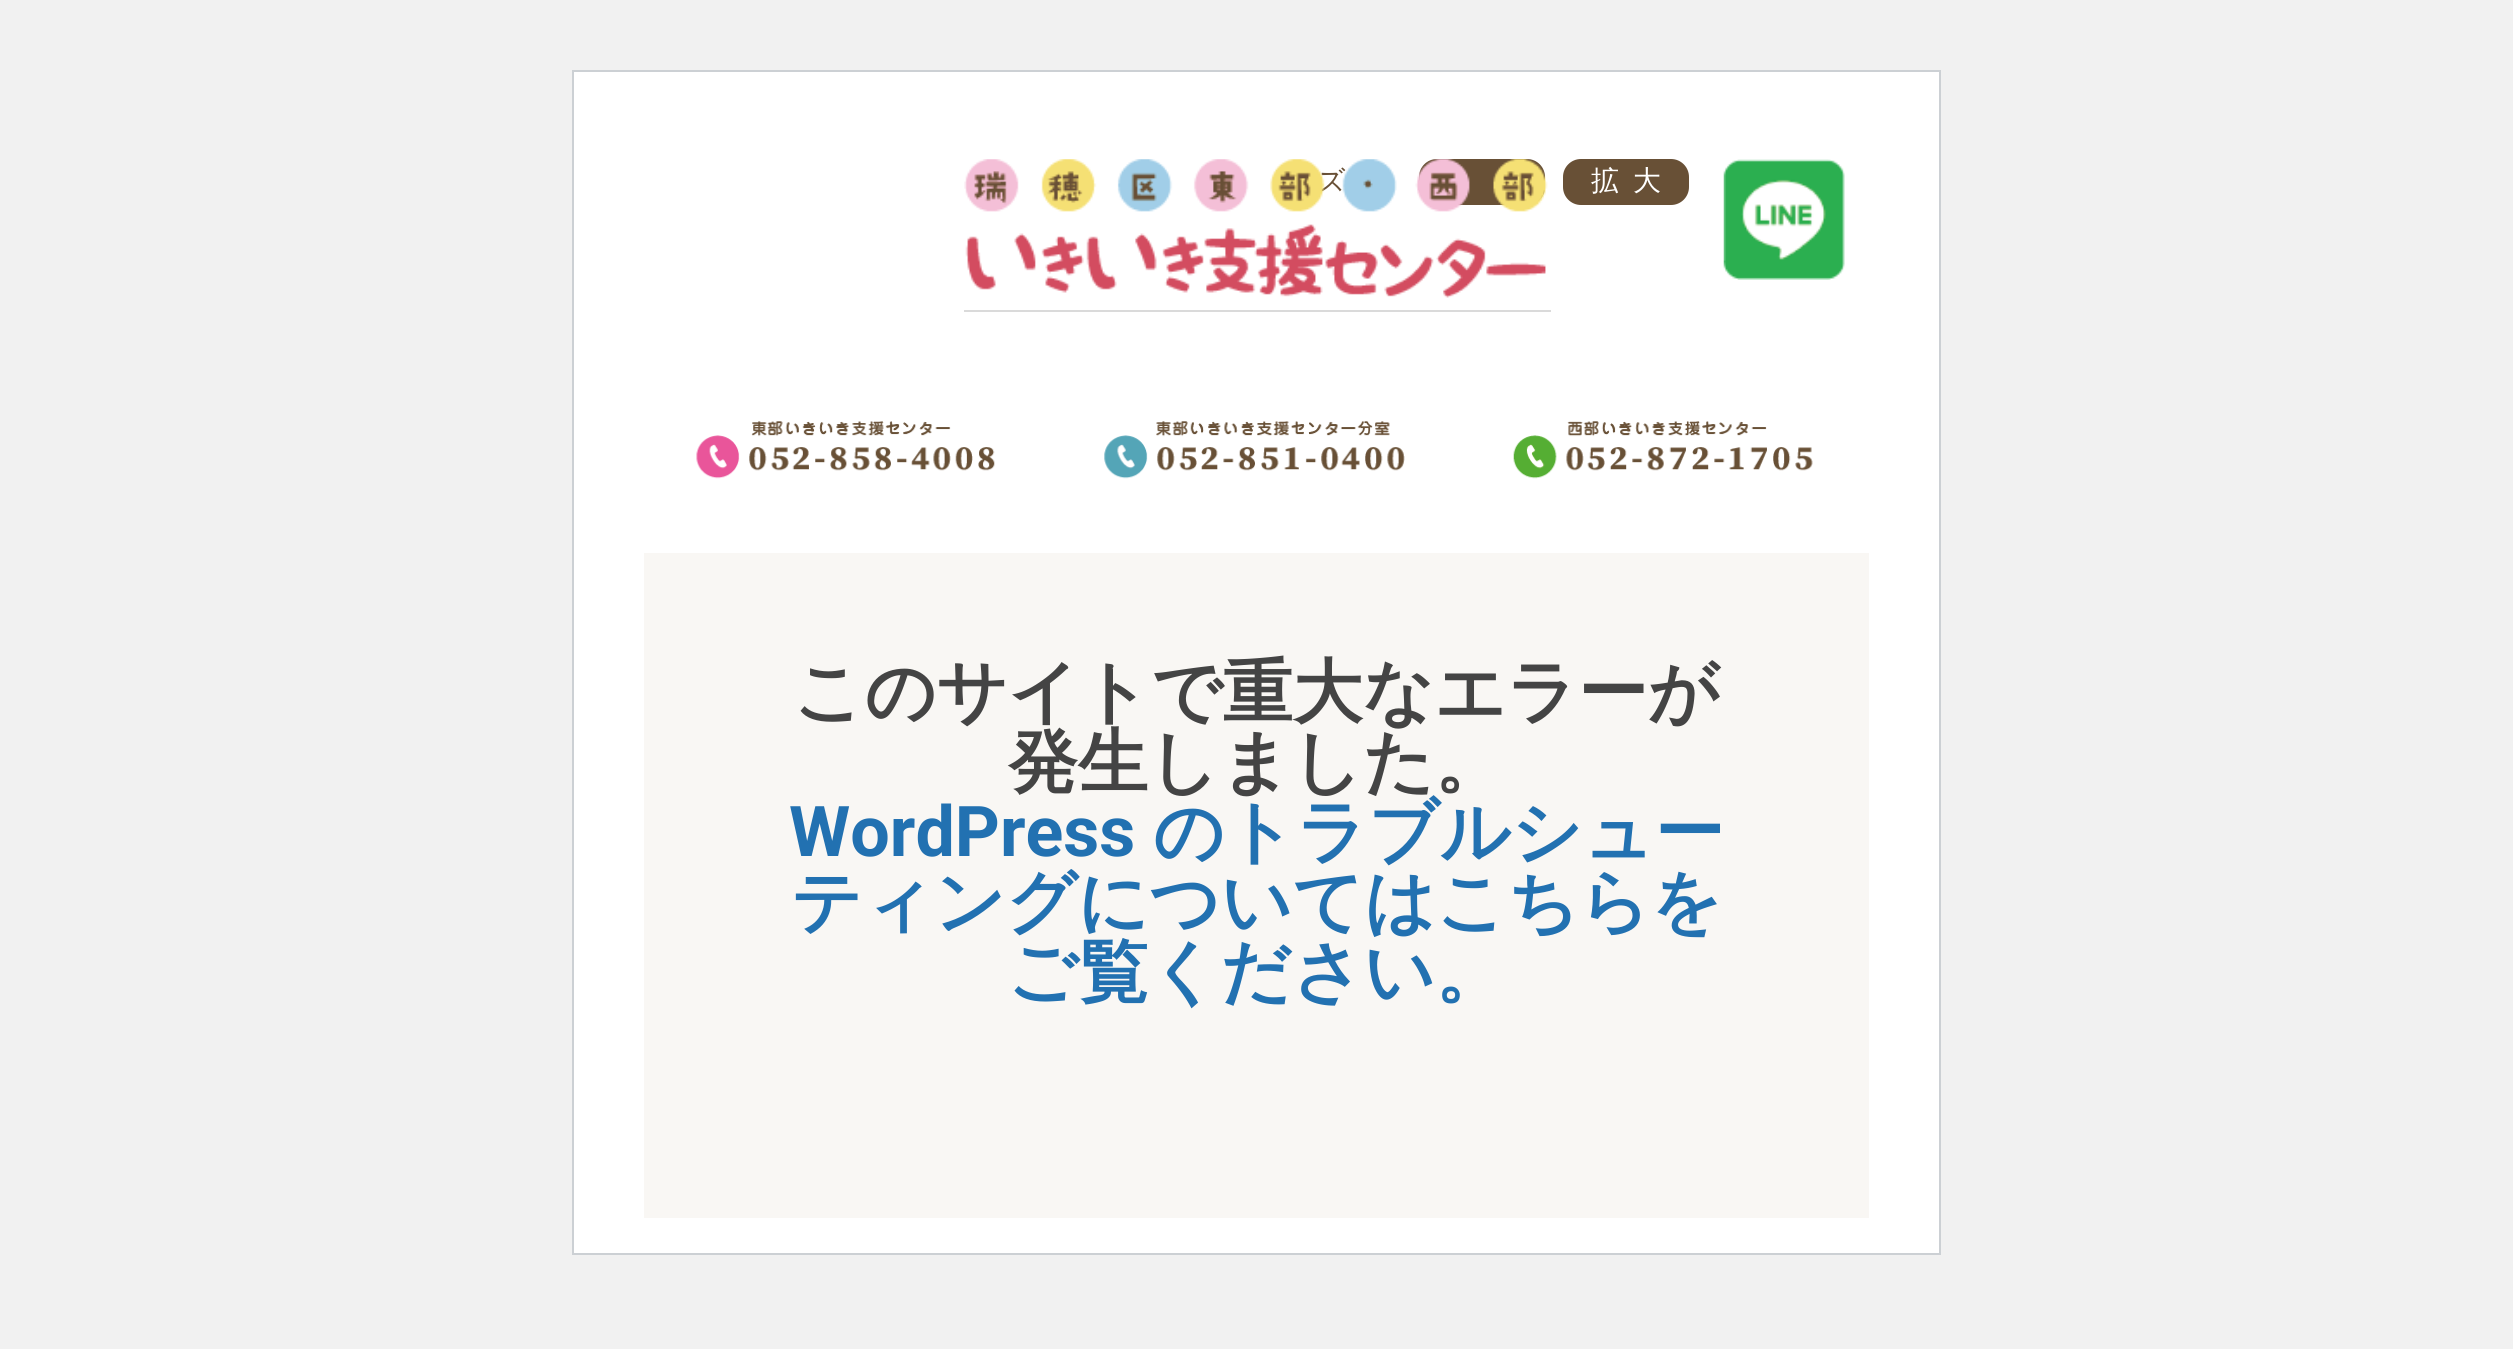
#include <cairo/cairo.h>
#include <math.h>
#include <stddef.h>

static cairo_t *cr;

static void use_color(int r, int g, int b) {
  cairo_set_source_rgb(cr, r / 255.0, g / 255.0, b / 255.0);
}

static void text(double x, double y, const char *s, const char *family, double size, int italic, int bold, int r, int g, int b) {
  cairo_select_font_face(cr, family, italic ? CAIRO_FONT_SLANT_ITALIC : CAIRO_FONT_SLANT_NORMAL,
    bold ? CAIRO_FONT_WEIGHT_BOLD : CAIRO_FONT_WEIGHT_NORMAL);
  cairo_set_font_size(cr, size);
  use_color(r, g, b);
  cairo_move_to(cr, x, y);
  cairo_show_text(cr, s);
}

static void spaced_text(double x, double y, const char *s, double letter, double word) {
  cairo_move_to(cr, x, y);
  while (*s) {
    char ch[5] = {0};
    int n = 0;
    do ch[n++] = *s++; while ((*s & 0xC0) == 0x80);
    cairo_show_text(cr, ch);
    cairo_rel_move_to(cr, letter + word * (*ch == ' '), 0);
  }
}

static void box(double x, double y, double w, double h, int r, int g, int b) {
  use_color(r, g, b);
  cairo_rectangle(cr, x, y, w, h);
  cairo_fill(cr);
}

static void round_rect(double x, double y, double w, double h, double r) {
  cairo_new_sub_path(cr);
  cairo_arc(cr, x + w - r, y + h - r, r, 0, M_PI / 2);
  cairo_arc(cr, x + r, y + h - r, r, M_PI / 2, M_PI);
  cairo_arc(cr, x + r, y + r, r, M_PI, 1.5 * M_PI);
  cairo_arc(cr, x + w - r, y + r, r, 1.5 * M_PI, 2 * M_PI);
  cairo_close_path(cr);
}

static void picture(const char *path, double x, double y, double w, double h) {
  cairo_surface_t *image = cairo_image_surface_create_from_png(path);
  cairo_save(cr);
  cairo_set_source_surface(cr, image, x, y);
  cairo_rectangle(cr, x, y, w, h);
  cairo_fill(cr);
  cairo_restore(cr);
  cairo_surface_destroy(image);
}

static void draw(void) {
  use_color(241, 241, 241);
  cairo_paint(cr);
  use_color(255, 255, 255);
  cairo_rectangle(cr, 573, 71, 1367, 1183);
  cairo_fill_preserve(cr);
  use_color(204, 208, 212);
  cairo_stroke(cr);
  box(964, 310, 587, 2, 218, 218, 218);
  use_color(104, 80, 54);
  round_rect(1419, 159, 126, 46, 18);
  cairo_fill(cr);
  round_rect(1563, 159, 126, 46, 18);
  cairo_fill(cr);
  picture("img_02.png", 1723, 159, 122, 121);
  picture("img_03.png", 696, 421, 299, 58);
  picture("img_04.png", 1104, 421, 301, 58);
  picture("img_05.png", 1513, 421, 300, 58);
  box(644, 553, 1225, 665, 249, 247, 244);
  text(1317, 190, "ズ", "WenQuanYi Zen Hei Medium", 28, 0, 0, 104, 80, 54);
  picture("img_01.png", 964, 159, 584, 139);
  use_color(255, 255, 255);
  spaced_text(1591, 190, "拡大", 14, 0);
  text(793, 716, "このサイトで重大なエラーが", "WenQuanYi Zen Hei", 70, 0, 1, 68, 68, 68);
  text(1008, 786, "発生しました。", "WenQuanYi Zen Hei", 70, 0, 1, 68, 68, 68);
  text(789, 856, "WordPress", "Roboto", 70, 0, 1, 34, 113, 177);
  text(1153, 856, "のトラブルシュー", "WenQuanYi Zen Hei", 70, 0, 1, 34, 113, 177);
  text(791, 926, "ティングについてはこちらを", "WenQuanYi Zen Hei", 70, 0, 1, 34, 113, 177);
  text(1007, 996, "ご覧ください。", "WenQuanYi Zen Hei", 70, 0, 1, 34, 113, 177);
}

int main(void) {
  cairo_surface_t *surface = cairo_image_surface_create(CAIRO_FORMAT_RGB24, 2513, 1349);
  cr = cairo_create(surface);
  cairo_font_options_t *options = cairo_font_options_create();
  cairo_font_options_set_hint_metrics(options, CAIRO_HINT_METRICS_OFF);
  cairo_font_options_set_hint_style(options, CAIRO_HINT_STYLE_NONE);
  cairo_set_font_options(cr, options);
  cairo_set_miter_limit(cr, 4);
  draw();
  cairo_surface_write_to_png(surface, "out.png");
  cairo_font_options_destroy(options);
  cairo_destroy(cr);
  cairo_surface_destroy(surface);
  return 0;
}
